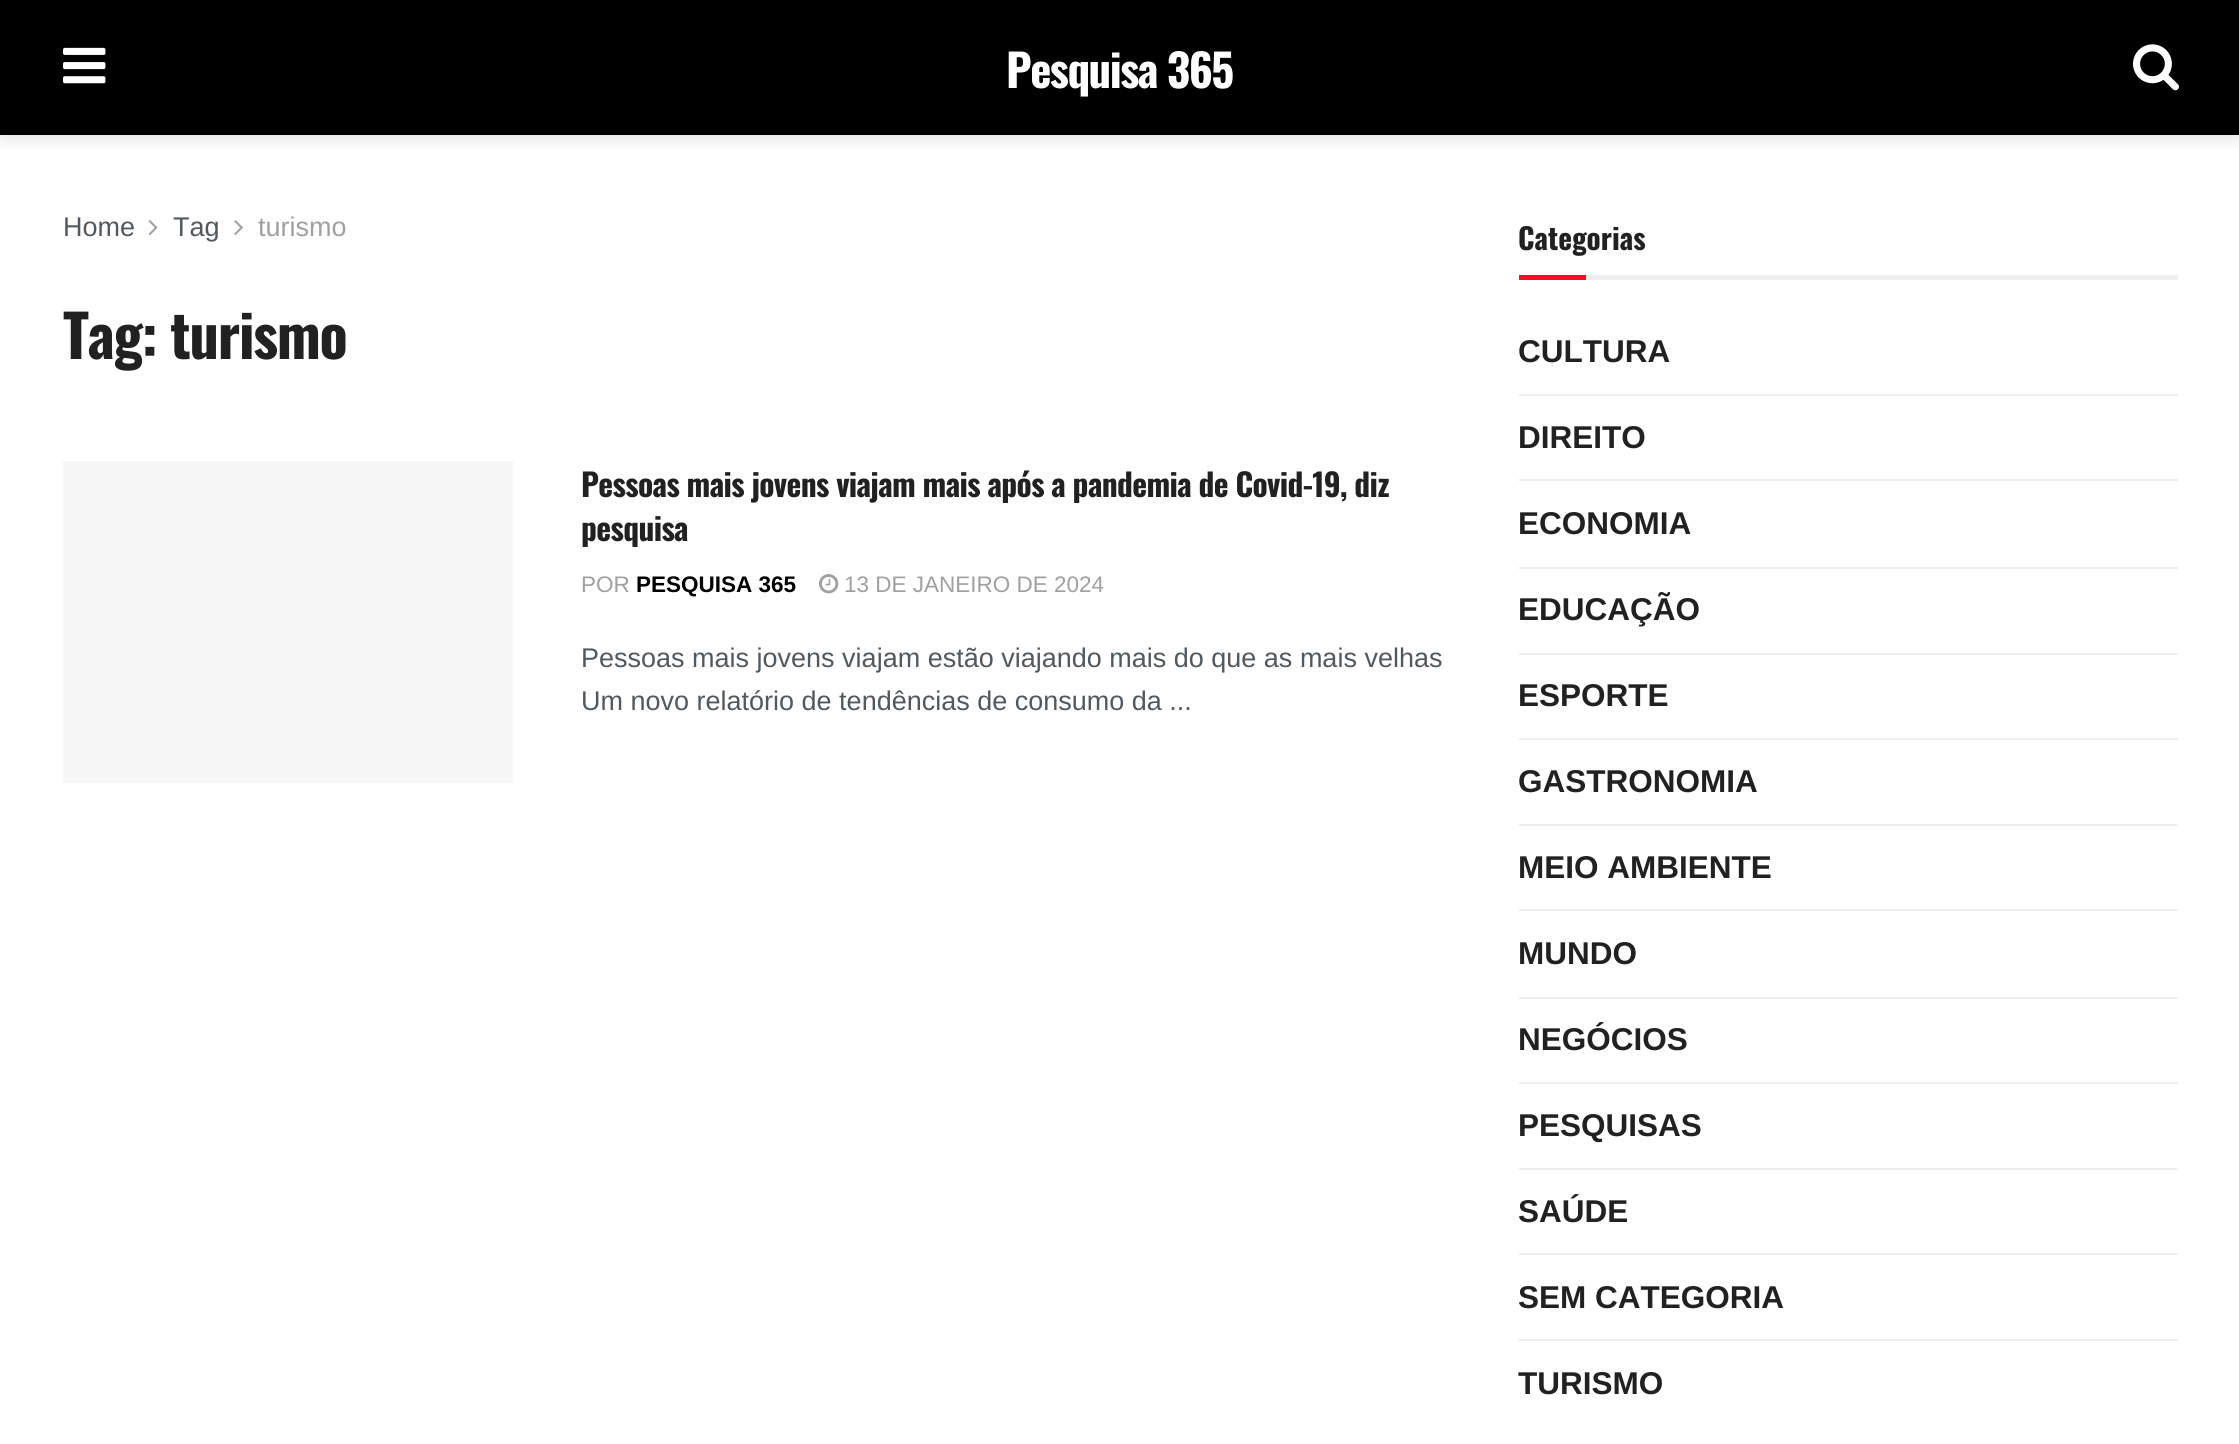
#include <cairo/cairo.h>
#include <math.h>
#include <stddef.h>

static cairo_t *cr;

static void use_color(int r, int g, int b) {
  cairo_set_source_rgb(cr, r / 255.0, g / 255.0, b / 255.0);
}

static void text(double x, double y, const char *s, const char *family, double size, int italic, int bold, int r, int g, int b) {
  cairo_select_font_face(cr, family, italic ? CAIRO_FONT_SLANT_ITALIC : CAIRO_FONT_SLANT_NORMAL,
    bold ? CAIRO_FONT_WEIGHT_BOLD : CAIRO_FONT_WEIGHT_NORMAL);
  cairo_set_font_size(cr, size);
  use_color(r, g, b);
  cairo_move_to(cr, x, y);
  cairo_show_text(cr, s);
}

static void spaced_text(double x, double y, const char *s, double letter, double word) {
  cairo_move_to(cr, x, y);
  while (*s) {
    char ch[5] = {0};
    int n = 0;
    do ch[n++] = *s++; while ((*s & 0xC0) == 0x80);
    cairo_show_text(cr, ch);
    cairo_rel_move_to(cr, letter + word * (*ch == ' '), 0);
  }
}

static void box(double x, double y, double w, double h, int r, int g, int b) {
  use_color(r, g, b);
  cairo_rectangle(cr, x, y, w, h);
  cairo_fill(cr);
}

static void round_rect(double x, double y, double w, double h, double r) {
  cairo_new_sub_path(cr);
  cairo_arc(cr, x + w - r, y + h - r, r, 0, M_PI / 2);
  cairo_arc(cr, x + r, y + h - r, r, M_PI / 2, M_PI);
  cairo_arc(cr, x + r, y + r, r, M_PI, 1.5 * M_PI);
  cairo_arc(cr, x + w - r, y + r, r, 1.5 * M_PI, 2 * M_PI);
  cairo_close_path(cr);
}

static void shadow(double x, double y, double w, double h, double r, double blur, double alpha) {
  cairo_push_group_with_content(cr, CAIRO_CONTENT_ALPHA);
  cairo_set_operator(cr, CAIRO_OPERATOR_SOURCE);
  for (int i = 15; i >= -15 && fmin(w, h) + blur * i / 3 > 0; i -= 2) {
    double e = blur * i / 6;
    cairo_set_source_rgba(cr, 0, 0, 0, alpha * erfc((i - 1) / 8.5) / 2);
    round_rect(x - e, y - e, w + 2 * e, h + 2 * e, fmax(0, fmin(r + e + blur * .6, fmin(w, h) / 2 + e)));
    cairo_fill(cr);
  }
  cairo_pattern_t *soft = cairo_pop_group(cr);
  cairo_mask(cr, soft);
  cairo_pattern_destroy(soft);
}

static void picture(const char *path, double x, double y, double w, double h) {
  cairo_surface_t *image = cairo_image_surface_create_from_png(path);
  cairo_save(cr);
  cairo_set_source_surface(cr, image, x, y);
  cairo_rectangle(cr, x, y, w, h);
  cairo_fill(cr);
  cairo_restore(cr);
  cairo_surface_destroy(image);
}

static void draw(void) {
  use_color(255, 255, 255);
  cairo_paint(cr);
  use_color(0, 0, 0);
  shadow(0, 5, 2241, 135, 0, 7, 0.1);
  box(0, 0, 2239, 135, 0, 0, 0);
  picture("img_01.png", 63, 47, 43, 37);
  picture("img_02.png", 2133, 44, 46, 47);
  picture("img_03.png", 148, 220, 10, 15);
  picture("img_04.png", 234, 220, 9, 15);
  box(63, 461, 450, 322, 247, 247, 247);
  picture("img_05.png", 819, 574, 20, 20);
  box(1586, 275, 592, 5, 238, 238, 238);
  box(1519, 275, 67, 5, 247, 13, 40);
  box(1519, 394, 659, 2, 238, 238, 238);
  box(1519, 479, 659, 2, 238, 238, 238);
  box(1519, 567, 659, 2, 238, 238, 238);
  box(1519, 653, 659, 2, 238, 238, 238);
  box(1519, 738, 659, 2, 238, 238, 238);
  box(1519, 824, 659, 2, 238, 238, 238);
  box(1519, 909, 659, 2, 238, 238, 238);
  box(1519, 997, 659, 2, 238, 238, 238);
  box(1519, 1082, 659, 2, 238, 238, 238);
  box(1519, 1168, 659, 2, 238, 238, 238);
  box(1519, 1253, 659, 2, 238, 238, 238);
  box(1519, 1339, 659, 2, 238, 238, 238);
  cairo_select_font_face(cr, "Oswald", CAIRO_FONT_SLANT_NORMAL, CAIRO_FONT_WEIGHT_BOLD);
  cairo_set_font_size(cr, 45);
  use_color(255, 255, 255);
  spaced_text(1006, 88, "Pesquisa 365", -1.5, 0);
  text(63, 236, "Home", "Liberation Sans", 27, 0, 0, 83, 88, 92);
  text(173, 236, "Tag", "Liberation Sans", 27, 0, 0, 83, 88, 92);
  text(258, 236, "turismo", "Liberation Sans", 27, 0, 0, 160, 160, 160);
  cairo_select_font_face(cr, "Oswald", CAIRO_FONT_SLANT_NORMAL, CAIRO_FONT_WEIGHT_BOLD);
  cairo_set_font_size(cr, 58.5);
  use_color(33, 33, 33);
  spaced_text(63, 359, "Tag: turismo", -1.25, 0);
  cairo_set_font_size(cr, 31.5);
  spaced_text(581, 497, "Pessoas mais jovens viajam mais após a pandemia de Covid-19, diz", -0.63, 0);
  spaced_text(581, 541, "pesquisa", -0.63, 0);
  text(581, 592, "POR", "Liberation Sans", 22.5, 0, 0, 160, 160, 160);
  text(636, 592, "PESQUISA 365", "Liberation Sans", 22.5, 0, 1, 0, 0, 0);
  text(844, 592, "13 DE JANEIRO DE 2024", "Liberation Sans", 22.5, 0, 0, 160, 160, 160);
  text(581, 667, "Pessoas mais jovens viajam estão viajando mais do que as mais velhas", "Liberation Sans", 27, 0, 0, 83, 88, 92);
  text(581, 710, "Um novo relatório de tendências de consumo da ...", "Liberation Sans", 27, 0, 0, 83, 88, 92);
  text(1518, 250, "Categorias", "Oswald", 29.25, 0, 1, 33, 33, 33);
  text(1518, 362, "CULTURA", "Liberation Sans", 31.5, 0, 1, 33, 33, 33);
  text(1518, 448, "DIREITO", "Liberation Sans", 31.5, 0, 1, 33, 33, 33);
  text(1518, 534, "ECONOMIA", "Liberation Sans", 31.5, 0, 1, 33, 33, 33);
  text(1518, 620, "EDUCAÇÃO", "Liberation Sans", 31.5, 0, 1, 33, 33, 33);
  text(1518, 706, "ESPORTE", "Liberation Sans", 31.5, 0, 1, 33, 33, 33);
  text(1518, 792, "GASTRONOMIA", "Liberation Sans", 31.5, 0, 1, 33, 33, 33);
  text(1518, 878, "MEIO AMBIENTE", "Liberation Sans", 31.5, 0, 1, 33, 33, 33);
  text(1518, 964, "MUNDO", "Liberation Sans", 31.5, 0, 1, 33, 33, 33);
  text(1518, 1050, "NEGÓCIOS", "Liberation Sans", 31.5, 0, 1, 33, 33, 33);
  text(1518, 1136, "PESQUISAS", "Liberation Sans", 31.5, 0, 1, 33, 33, 33);
  text(1518, 1222, "SAÚDE", "Liberation Sans", 31.5, 0, 1, 33, 33, 33);
  text(1518, 1308, "SEM CATEGORIA", "Liberation Sans", 31.5, 0, 1, 33, 33, 33);
  text(1518, 1394, "TURISMO", "Liberation Sans", 31.5, 0, 1, 33, 33, 33);
}

int main(void) {
  cairo_surface_t *surface = cairo_image_surface_create(CAIRO_FORMAT_RGB24, 2239, 1444);
  cr = cairo_create(surface);
  cairo_font_options_t *options = cairo_font_options_create();
  cairo_font_options_set_hint_metrics(options, CAIRO_HINT_METRICS_OFF);
  cairo_font_options_set_hint_style(options, CAIRO_HINT_STYLE_NONE);
  cairo_set_font_options(cr, options);
  cairo_set_miter_limit(cr, 4);
  draw();
  cairo_surface_write_to_png(surface, "out.png");
  cairo_font_options_destroy(options);
  cairo_destroy(cr);
  cairo_surface_destroy(surface);
  return 0;
}
